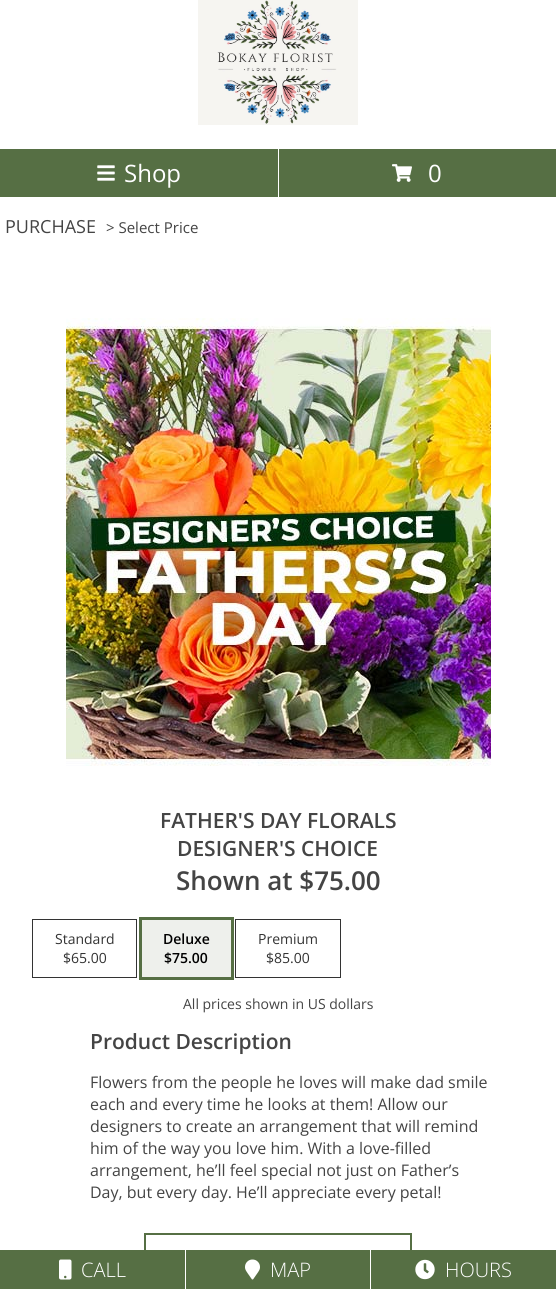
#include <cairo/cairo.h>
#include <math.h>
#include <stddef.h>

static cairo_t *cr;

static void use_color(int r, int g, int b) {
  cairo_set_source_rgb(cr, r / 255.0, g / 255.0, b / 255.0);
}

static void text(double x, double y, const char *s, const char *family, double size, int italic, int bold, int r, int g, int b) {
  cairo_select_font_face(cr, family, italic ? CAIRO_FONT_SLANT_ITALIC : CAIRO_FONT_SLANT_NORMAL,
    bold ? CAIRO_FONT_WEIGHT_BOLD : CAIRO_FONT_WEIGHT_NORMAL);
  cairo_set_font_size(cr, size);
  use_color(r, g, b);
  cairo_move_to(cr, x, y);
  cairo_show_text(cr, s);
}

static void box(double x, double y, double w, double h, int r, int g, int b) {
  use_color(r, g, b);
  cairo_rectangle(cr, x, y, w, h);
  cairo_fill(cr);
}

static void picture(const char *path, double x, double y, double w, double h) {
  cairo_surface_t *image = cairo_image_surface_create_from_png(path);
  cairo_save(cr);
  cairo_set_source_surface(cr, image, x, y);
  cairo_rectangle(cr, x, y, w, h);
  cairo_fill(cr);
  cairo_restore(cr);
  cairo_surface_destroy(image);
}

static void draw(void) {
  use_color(255, 255, 255);
  cairo_paint(cr);
  picture("img_01.png", 198, 0, 160, 125);
  box(0, 149, 278, 48, 86, 111, 68);
  picture("img_02.png", 97, 165, 18, 16);
  box(279, 149, 277, 48, 86, 111, 68);
  picture("img_03.png", 392, 164, 20, 18);
  picture("img_04.png", 66, 318, 425, 448);
  cairo_rectangle(cr, 32.5, 919.5, 104, 58);
  use_color(51, 51, 51);
  cairo_set_line_width(cr, 1);
  cairo_stroke(cr);
  cairo_rectangle(cr, 140.5, 918.5, 92, 60);
  use_color(86, 111, 68);
  cairo_set_line_width(cr, 3);
  cairo_stroke(cr);
  box(142, 920, 89, 57, 238, 240, 236);
  cairo_rectangle(cr, 235.5, 919.5, 105, 58);
  use_color(51, 51, 51);
  cairo_set_line_width(cr, 1);
  cairo_stroke(cr);
  cairo_rectangle(cr, 145, 1234, 266, 46);
  use_color(86, 111, 68);
  cairo_set_line_width(cr, 2);
  cairo_stroke(cr);
  box(0, 1250, 185, 39, 86, 111, 68);
  picture("img_05.png", 59, 1259, 13, 21);
  box(186, 1250, 184, 39, 86, 111, 68);
  box(185, 1279, 1, 10, 255, 255, 255);
  picture("img_06.png", 245, 1259, 15, 21);
  box(371, 1250, 185, 39, 86, 111, 68);
  box(370, 1279, 1, 10, 255, 255, 255);
  picture("img_07.png", 415, 1259, 20, 21);
  text(124, 182, "Shop", "Open Sans", 24, 0, 0, 255, 255, 255);
  text(428, 182, "0", "Open Sans", 24, 0, 0, 255, 255, 255);
  text(5, 233, "PURCHASE", "Open Sans", 18, 0, 0, 68, 68, 68);
  text(106, 233, "> Select Price", "Open Sans", 15, 0, 0, 68, 68, 68);
  text(160, 828, "FATHER'S DAY FLORALS", "Open Sans SemiBold", 21, 0, 0, 68, 68, 68);
  text(177, 856, "DESIGNER'S CHOICE", "Open Sans SemiBold", 21, 0, 0, 68, 68, 68);
  text(176, 890, "Shown at $75.00", "Open Sans SemiBold", 26, 0, 0, 68, 68, 68);
  text(55, 944, "Standard", "Open Sans", 14, 0, 0, 51, 51, 51);
  text(63, 963, "$65.00", "Open Sans", 14, 0, 0, 51, 51, 51);
  text(163, 944, "Deluxe", "Open Sans SemiBold", 14, 0, 0, 0, 0, 0);
  text(164, 963, "$75.00", "Open Sans SemiBold", 14, 0, 0, 0, 0, 0);
  text(258, 944, "Premium", "Open Sans", 14, 0, 0, 51, 51, 51);
  text(266, 963, "$85.00", "Open Sans", 14, 0, 0, 51, 51, 51);
  text(183, 1009, "All prices shown in US dollars", "Open Sans", 14, 0, 0, 68, 68, 68);
  text(90, 1049, "Product Description", "Open Sans SemiBold", 21, 0, 0, 68, 68, 68);
  text(90, 1088, "Flowers from the people he loves will make dad smile", "Open Sans", 16, 0, 0, 68, 68, 68);
  text(90, 1110, "each and every time he looks at them! Allow our", "Open Sans", 16, 0, 0, 68, 68, 68);
  text(90, 1132, "designers to create an arrangement that will remind", "Open Sans", 16, 0, 0, 68, 68, 68);
  text(90, 1154, "him of the way you love him. With a love-filled", "Open Sans", 16, 0, 0, 68, 68, 68);
  text(90, 1176, "arrangement, he’ll feel special not just on Father’s", "Open Sans", 16, 0, 0, 68, 68, 68);
  text(90, 1198, "Day, but every day. He’ll appreciate every petal!", "Open Sans", 16, 0, 0, 68, 68, 68);
  text(81, 1277, "CALL", "Open Sans Light", 20, 0, 0, 255, 255, 255);
  text(270, 1277, "MAP", "Open Sans Light", 20, 0, 0, 255, 255, 255);
  text(445, 1277, "HOURS", "Open Sans Light", 20, 0, 0, 255, 255, 255);
}

int main(void) {
  cairo_surface_t *surface = cairo_image_surface_create(CAIRO_FORMAT_RGB24, 556, 1289);
  cr = cairo_create(surface);
  cairo_font_options_t *options = cairo_font_options_create();
  cairo_font_options_set_hint_metrics(options, CAIRO_HINT_METRICS_OFF);
  cairo_font_options_set_hint_style(options, CAIRO_HINT_STYLE_NONE);
  cairo_set_font_options(cr, options);
  cairo_set_miter_limit(cr, 4);
  draw();
  cairo_surface_write_to_png(surface, "out.png");
  cairo_font_options_destroy(options);
  cairo_destroy(cr);
  cairo_surface_destroy(surface);
  return 0;
}
